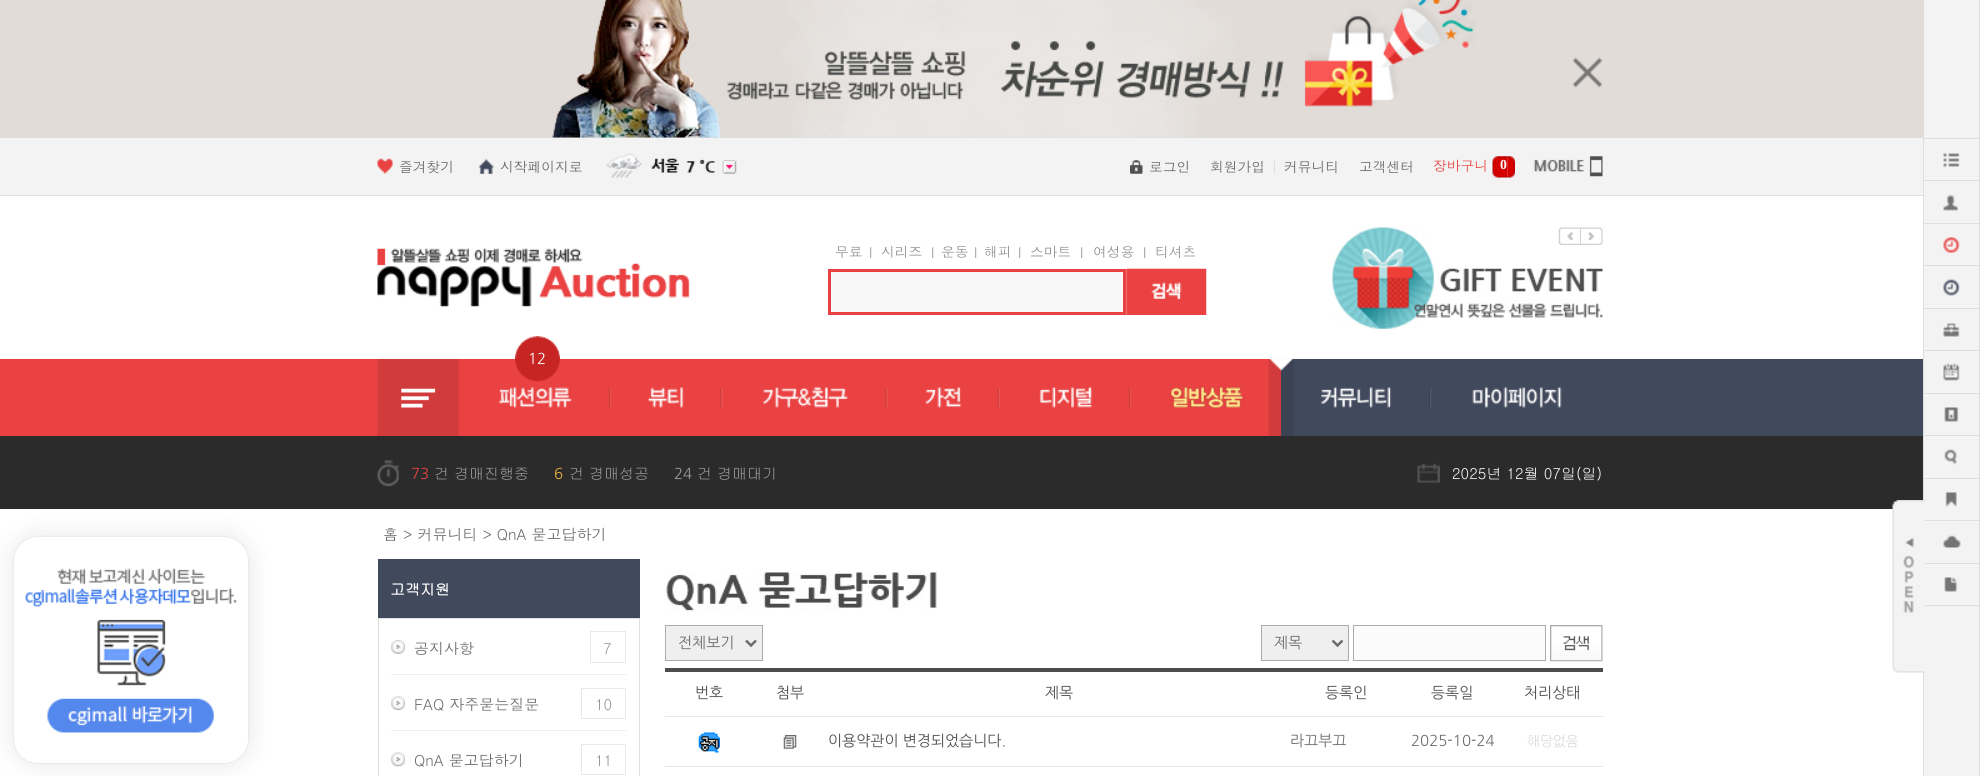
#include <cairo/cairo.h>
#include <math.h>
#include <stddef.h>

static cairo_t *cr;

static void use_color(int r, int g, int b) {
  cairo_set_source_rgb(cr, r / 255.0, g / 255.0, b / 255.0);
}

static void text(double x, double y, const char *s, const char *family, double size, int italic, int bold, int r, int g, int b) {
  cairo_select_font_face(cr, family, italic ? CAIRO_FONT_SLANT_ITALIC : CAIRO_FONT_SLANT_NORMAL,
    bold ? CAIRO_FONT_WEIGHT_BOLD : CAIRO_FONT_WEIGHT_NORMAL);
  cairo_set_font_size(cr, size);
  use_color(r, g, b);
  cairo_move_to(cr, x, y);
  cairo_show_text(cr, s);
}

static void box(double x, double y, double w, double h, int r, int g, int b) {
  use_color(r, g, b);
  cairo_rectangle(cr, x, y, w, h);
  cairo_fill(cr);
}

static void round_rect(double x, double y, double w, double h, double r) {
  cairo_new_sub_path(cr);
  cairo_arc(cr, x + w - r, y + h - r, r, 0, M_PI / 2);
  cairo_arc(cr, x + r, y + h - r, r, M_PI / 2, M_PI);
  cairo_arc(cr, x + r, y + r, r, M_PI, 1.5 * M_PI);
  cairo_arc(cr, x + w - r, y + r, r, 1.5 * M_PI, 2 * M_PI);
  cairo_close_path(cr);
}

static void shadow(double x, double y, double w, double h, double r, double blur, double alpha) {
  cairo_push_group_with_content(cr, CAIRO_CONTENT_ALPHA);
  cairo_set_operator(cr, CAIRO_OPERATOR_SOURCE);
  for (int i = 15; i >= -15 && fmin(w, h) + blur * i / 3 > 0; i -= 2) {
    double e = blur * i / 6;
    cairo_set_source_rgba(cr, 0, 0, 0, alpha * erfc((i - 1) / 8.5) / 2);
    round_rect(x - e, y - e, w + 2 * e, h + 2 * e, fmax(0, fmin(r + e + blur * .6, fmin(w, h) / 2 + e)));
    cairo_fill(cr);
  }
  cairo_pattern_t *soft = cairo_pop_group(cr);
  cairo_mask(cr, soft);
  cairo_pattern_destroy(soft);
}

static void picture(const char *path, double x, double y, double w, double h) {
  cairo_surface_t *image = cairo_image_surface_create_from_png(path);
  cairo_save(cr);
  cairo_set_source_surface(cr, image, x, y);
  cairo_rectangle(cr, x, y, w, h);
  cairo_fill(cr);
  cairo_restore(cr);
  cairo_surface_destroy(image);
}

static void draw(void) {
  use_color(255, 255, 255);
  cairo_paint(cr);
  box(0, 436, 1923, 73, 43, 43, 43);
  use_color(0, 0, 0);
  shadow(13, 536, 236, 228, 25, 12.5, 0.1);
  use_color(255, 255, 255);
  round_rect(13.5, 536.5, 235, 227, 24.5);
  cairo_fill_preserve(cr);
  use_color(234, 234, 234);
  cairo_set_line_width(cr, 1);
  cairo_stroke(cr);
  picture("img_01.png", 24, 568, 213, 165);
  box(0, 0, 1923, 138, 225, 220, 216);
  picture("img_02.png", 552, 0, 924, 138);
  picture("img_03.png", 1572, 57, 31, 31);
  box(1924, 0, 55, 776, 243, 243, 243);
  box(1923, 0, 1, 776, 222, 222, 222);
  box(1924, 520, 55, 1, 222, 222, 222);
  box(1924, 563, 55, 1, 222, 222, 222);
  box(1924, 605, 55, 1, 222, 222, 222);
  picture("img_04.png", 1892, 500, 33, 173);
  box(1979, 0, 1, 776, 222, 222, 222);
  box(1924, 138, 55, 1, 222, 222, 222);
  box(1924, 180, 55, 1, 222, 222, 222);
  picture("img_05.png", 1943, 153, 17, 14);
  box(1924, 223, 55, 1, 222, 222, 222);
  picture("img_06.png", 1943, 194, 16, 17);
  box(1924, 265, 55, 1, 222, 222, 222);
  picture("img_07.png", 1943, 237, 17, 16);
  box(1924, 308, 55, 1, 222, 222, 222);
  picture("img_08.png", 1943, 279, 17, 17);
  box(1924, 350, 55, 1, 222, 222, 222);
  picture("img_09.png", 1943, 323, 17, 14);
  box(1924, 393, 55, 1, 222, 222, 222);
  picture("img_10.png", 1943, 363, 17, 18);
  box(1924, 435, 55, 1, 222, 222, 222);
  picture("img_11.png", 1944, 407, 15, 15);
  box(1924, 478, 55, 1, 222, 222, 222);
  picture("img_12.png", 1944, 449, 13, 16);
  picture("img_13.png", 1945, 492, 12, 15);
  picture("img_14.png", 1943, 535, 18, 13);
  picture("img_15.png", 1944, 577, 13, 15);
  box(0, 138, 1923, 57, 243, 243, 243);
  box(0, 195, 1923, 1, 224, 224, 224);
  picture("img_16.png", 377, 158, 16, 16);
  picture("img_17.png", 478, 158, 16, 16);
  picture("img_18.png", 606, 153, 36, 25);
  picture("img_19.png", 651, 158, 28, 15);
  picture("img_20.png", 686, 159, 30, 14);
  picture("img_21.png", 722, 160, 15, 14);
  picture("img_22.png", 1130, 160, 13, 14);
  picture("img_23.png", 1507, 156, 8, 22);
  picture("img_24.png", 1492, 156, 16, 22);
  picture("img_25.png", 1533, 156, 70, 21);
  picture("img_26.png", 377, 248, 313, 59);
  use_color(248, 248, 248);
  cairo_rectangle(cr, 829.5, 270.5, 295, 43);
  cairo_fill_preserve(cr);
  use_color(234, 66, 66);
  cairo_set_line_width(cr, 3);
  cairo_stroke(cr);
  picture("img_27.png", 1126, 268, 81, 47);
  picture("img_28.png", 1332, 227, 271, 102);
  picture("img_29.png", 1558, 227, 24, 18);
  picture("img_30.png", 1581, 227, 22, 18);
  box(0, 359, 1281, 77, 234, 66, 66);
  picture("img_31.png", 515, 336, 45, 46);
  picture("img_39.png", 1170, 358, 111, 78);
  box(1281, 359, 642, 77, 65, 73, 92);
  picture("img_40.png", 1281, 358, 151, 78);
  picture("img_32.png", 1269, 359, 24, 12);
  picture("img_33.png", 377, 358, 82, 78);
  picture("img_34.png", 498, 387, 114, 22);
  picture("img_35.png", 647, 387, 76, 22);
  picture("img_36.png", 762, 387, 126, 22);
  picture("img_37.png", 925, 387, 75, 22);
  picture("img_38.png", 1039, 387, 93, 22);
  picture("img_41.png", 1472, 387, 90, 21);
  picture("img_42.png", 377, 460, 22, 27);
  picture("img_43.png", 1417, 463, 23, 20);
  box(378, 559, 262, 59, 65, 73, 92);
  box(378, 618, 262, 1, 223, 223, 223);
  box(639, 619, 1, 157, 223, 223, 223);
  box(378, 619, 1, 157, 223, 223, 223);
  picture("img_44.png", 391, 640, 14, 14);
  cairo_rectangle(cr, 590.5, 631.5, 35, 31);
  use_color(233, 233, 233);
  cairo_set_line_width(cr, 1);
  cairo_stroke(cr);
  box(391, 674, 235, 1, 238, 238, 238);
  picture("img_45.png", 391, 696, 14, 14);
  cairo_rectangle(cr, 581.5, 688.5, 44, 30);
  use_color(233, 233, 233);
  cairo_stroke(cr);
  box(391, 730, 235, 1, 238, 238, 238);
  picture("img_46.png", 391, 752, 14, 15);
  cairo_rectangle(cr, 581.5, 744.5, 44, 30);
  use_color(233, 233, 233);
  cairo_stroke(cr);
  picture("img_47.png", 666, 572, 271, 39);
  use_color(239, 239, 239);
  cairo_rectangle(cr, 665.5, 625.5, 97, 35);
  cairo_fill_preserve(cr);
  use_color(171, 171, 171);
  cairo_stroke(cr);
  cairo_new_path(cr);
  cairo_move_to(cr, 746, 640.5);
  cairo_line_to(cr, 751, 645.5);
  cairo_line_to(cr, 756, 640.5);
  use_color(108, 108, 108);
  cairo_set_line_width(cr, 2.5);
  cairo_stroke(cr);
  use_color(239, 239, 239);
  cairo_rectangle(cr, 1261.5, 625.5, 87, 35);
  cairo_fill_preserve(cr);
  use_color(171, 171, 171);
  cairo_set_line_width(cr, 1);
  cairo_stroke(cr);
  cairo_new_path(cr);
  cairo_move_to(cr, 1332.5, 640.5);
  cairo_line_to(cr, 1337.5, 645.5);
  cairo_line_to(cr, 1342.5, 640.5);
  use_color(108, 108, 108);
  cairo_set_line_width(cr, 2.5);
  cairo_stroke(cr);
  use_color(251, 251, 251);
  cairo_rectangle(cr, 1353.5, 625.5, 192, 35);
  cairo_fill_preserve(cr);
  use_color(171, 171, 171);
  cairo_set_line_width(cr, 1);
  cairo_stroke(cr);
  picture("img_48.png", 1550, 625, 53, 37);
  box(665, 668, 938, 4, 77, 77, 77);
  box(665, 716, 938, 1, 231, 231, 230);
  box(665, 766, 938, 1, 231, 231, 230);
  picture("img_49.png", 698, 732, 22, 21);
  picture("img_50.png", 783, 735, 14, 14);
  text(399, 172, "즐겨찾기", "Dotum", 13.75, 0, 0, 102, 102, 102);
  text(500, 172, "시작페이지로", "Dotum", 13.75, 0, 0, 102, 102, 102);
  text(1149, 172, "로그인", "Dotum", 13.75, 0, 0, 102, 102, 102);
  text(1210, 172, "회원가입", "Dotum", 13.75, 0, 0, 102, 102, 102);
  text(1271, 172, "|", "Dotum", 13.75, 0, 0, 218, 218, 218);
  text(1284, 172, "커뮤니티", "Dotum", 13.75, 0, 0, 102, 102, 102);
  text(1359, 172, "고객센터", "Dotum", 13.75, 0, 0, 102, 102, 102);
  text(1433, 171, "장바구니", "Dotum", 13.75, 0, 0, 234, 66, 66);
  text(1500, 169, "0", "Liberation Serif", 13.75, 0, 1, 255, 255, 255);
  text(835, 257, "무료", "Dotum", 13.75, 0, 0, 144, 144, 144);
  text(869, 258, "l", "Dotum", 15, 0, 0, 144, 144, 144);
  text(881, 257, "시리즈", "Dotum", 13.75, 0, 0, 144, 144, 144);
  text(931, 258, "l", "Dotum", 15, 0, 0, 144, 144, 144);
  text(941, 257, "운동", "Dotum", 13.75, 0, 0, 144, 144, 144);
  text(974, 258, "l", "Dotum", 15, 0, 0, 144, 144, 144);
  text(984, 257, "해피", "Dotum", 13.75, 0, 0, 144, 144, 144);
  text(1018, 258, "l", "Dotum", 15, 0, 0, 144, 144, 144);
  text(1030, 257, "스마트", "Dotum", 13.75, 0, 0, 144, 144, 144);
  text(1080, 258, "l", "Dotum", 15, 0, 0, 144, 144, 144);
  text(1093, 257, "여성용", "Dotum", 13.75, 0, 0, 144, 144, 144);
  text(1143, 258, "l", "Dotum", 15, 0, 0, 144, 144, 144);
  text(1155, 257, "티셔츠", "Dotum", 13.75, 0, 0, 144, 144, 144);
  text(528, 364, "12", "NanumGothic", 15, 0, 0, 255, 255, 255);
  text(411, 479, "73", "NanumGothic", 15, 0, 0, 234, 66, 66);
  text(434, 479, "건 경매진행중", "Gulim", 15, 0, 0, 156, 155, 155);
  text(554, 479, "6", "NanumGothic", 15, 0, 0, 236, 177, 62);
  text(569, 479, "건 경매성공", "Gulim", 15, 0, 0, 156, 155, 155);
  text(674, 479, "24", "NanumGothic", 15, 0, 0, 156, 155, 155);
  text(697, 479, "건 경매대기", "Gulim", 15, 0, 0, 156, 155, 155);
  text(1452, 479, "2025년 12월 07일(일)", "Gulim", 15, 0, 0, 255, 255, 255);
  text(383, 540, "홈 > 커뮤니티 > QnA 묻고답하기", "Dotum", 15, 0, 0, 108, 108, 108);
  text(390, 595, "고객지원", "Gulim", 15, 0, 1, 255, 255, 255);
  text(414, 654, "공지사항", "Dotum", 15, 0, 0, 108, 108, 108);
  text(603, 654, "7", "Gulim", 15, 0, 0, 144, 144, 144);
  text(414, 710, "FAQ 자주묻는질문", "Dotum", 15, 0, 0, 108, 108, 108);
  text(595, 710, "10", "Gulim", 15, 0, 0, 144, 144, 144);
  text(414, 766, "QnA 묻고답하기", "Dotum", 15, 0, 0, 108, 108, 108);
  text(595, 766, "11", "Gulim", 15, 0, 0, 144, 144, 144);
  text(678, 648, "전체보기", "NanumGothic", 15, 0, 0, 108, 108, 108);
  text(1274, 648, "제목", "NanumGothic", 15, 0, 0, 108, 108, 108);
  text(695, 698, "번호", "NanumGothic", 15, 0, 0, 80, 80, 80);
  text(776, 698, "첨부", "NanumGothic", 15, 0, 0, 80, 80, 80);
  text(1045, 698, "제목", "NanumGothic", 15, 0, 0, 80, 80, 80);
  text(1325, 698, "등록인", "NanumGothic", 15, 0, 0, 80, 80, 80);
  text(1431, 698, "등록일", "NanumGothic", 15, 0, 0, 80, 80, 80);
  text(1524, 698, "처리상태", "NanumGothic", 15, 0, 0, 80, 80, 80);
  text(828, 746, "이용약관이 변경되었습니다.", "NanumGothic", 15, 0, 0, 80, 80, 80);
  text(1290, 746, "라끄부끄", "NanumGothic", 15, 0, 0, 108, 108, 108);
  text(1411, 746, "2025-10-24", "NanumGothic", 15, 0, 0, 108, 108, 108);
  text(1527, 746, "해당없음", "NanumGothic", 13.75, 0, 0, 218, 218, 218);
}

int main(void) {
  cairo_surface_t *surface = cairo_image_surface_create(CAIRO_FORMAT_RGB24, 1980, 776);
  cr = cairo_create(surface);
  cairo_font_options_t *options = cairo_font_options_create();
  cairo_font_options_set_hint_metrics(options, CAIRO_HINT_METRICS_OFF);
  cairo_font_options_set_hint_style(options, CAIRO_HINT_STYLE_NONE);
  cairo_set_font_options(cr, options);
  cairo_set_miter_limit(cr, 4);
  draw();
  cairo_surface_write_to_png(surface, "out.png");
  cairo_font_options_destroy(options);
  cairo_destroy(cr);
  cairo_surface_destroy(surface);
  return 0;
}
